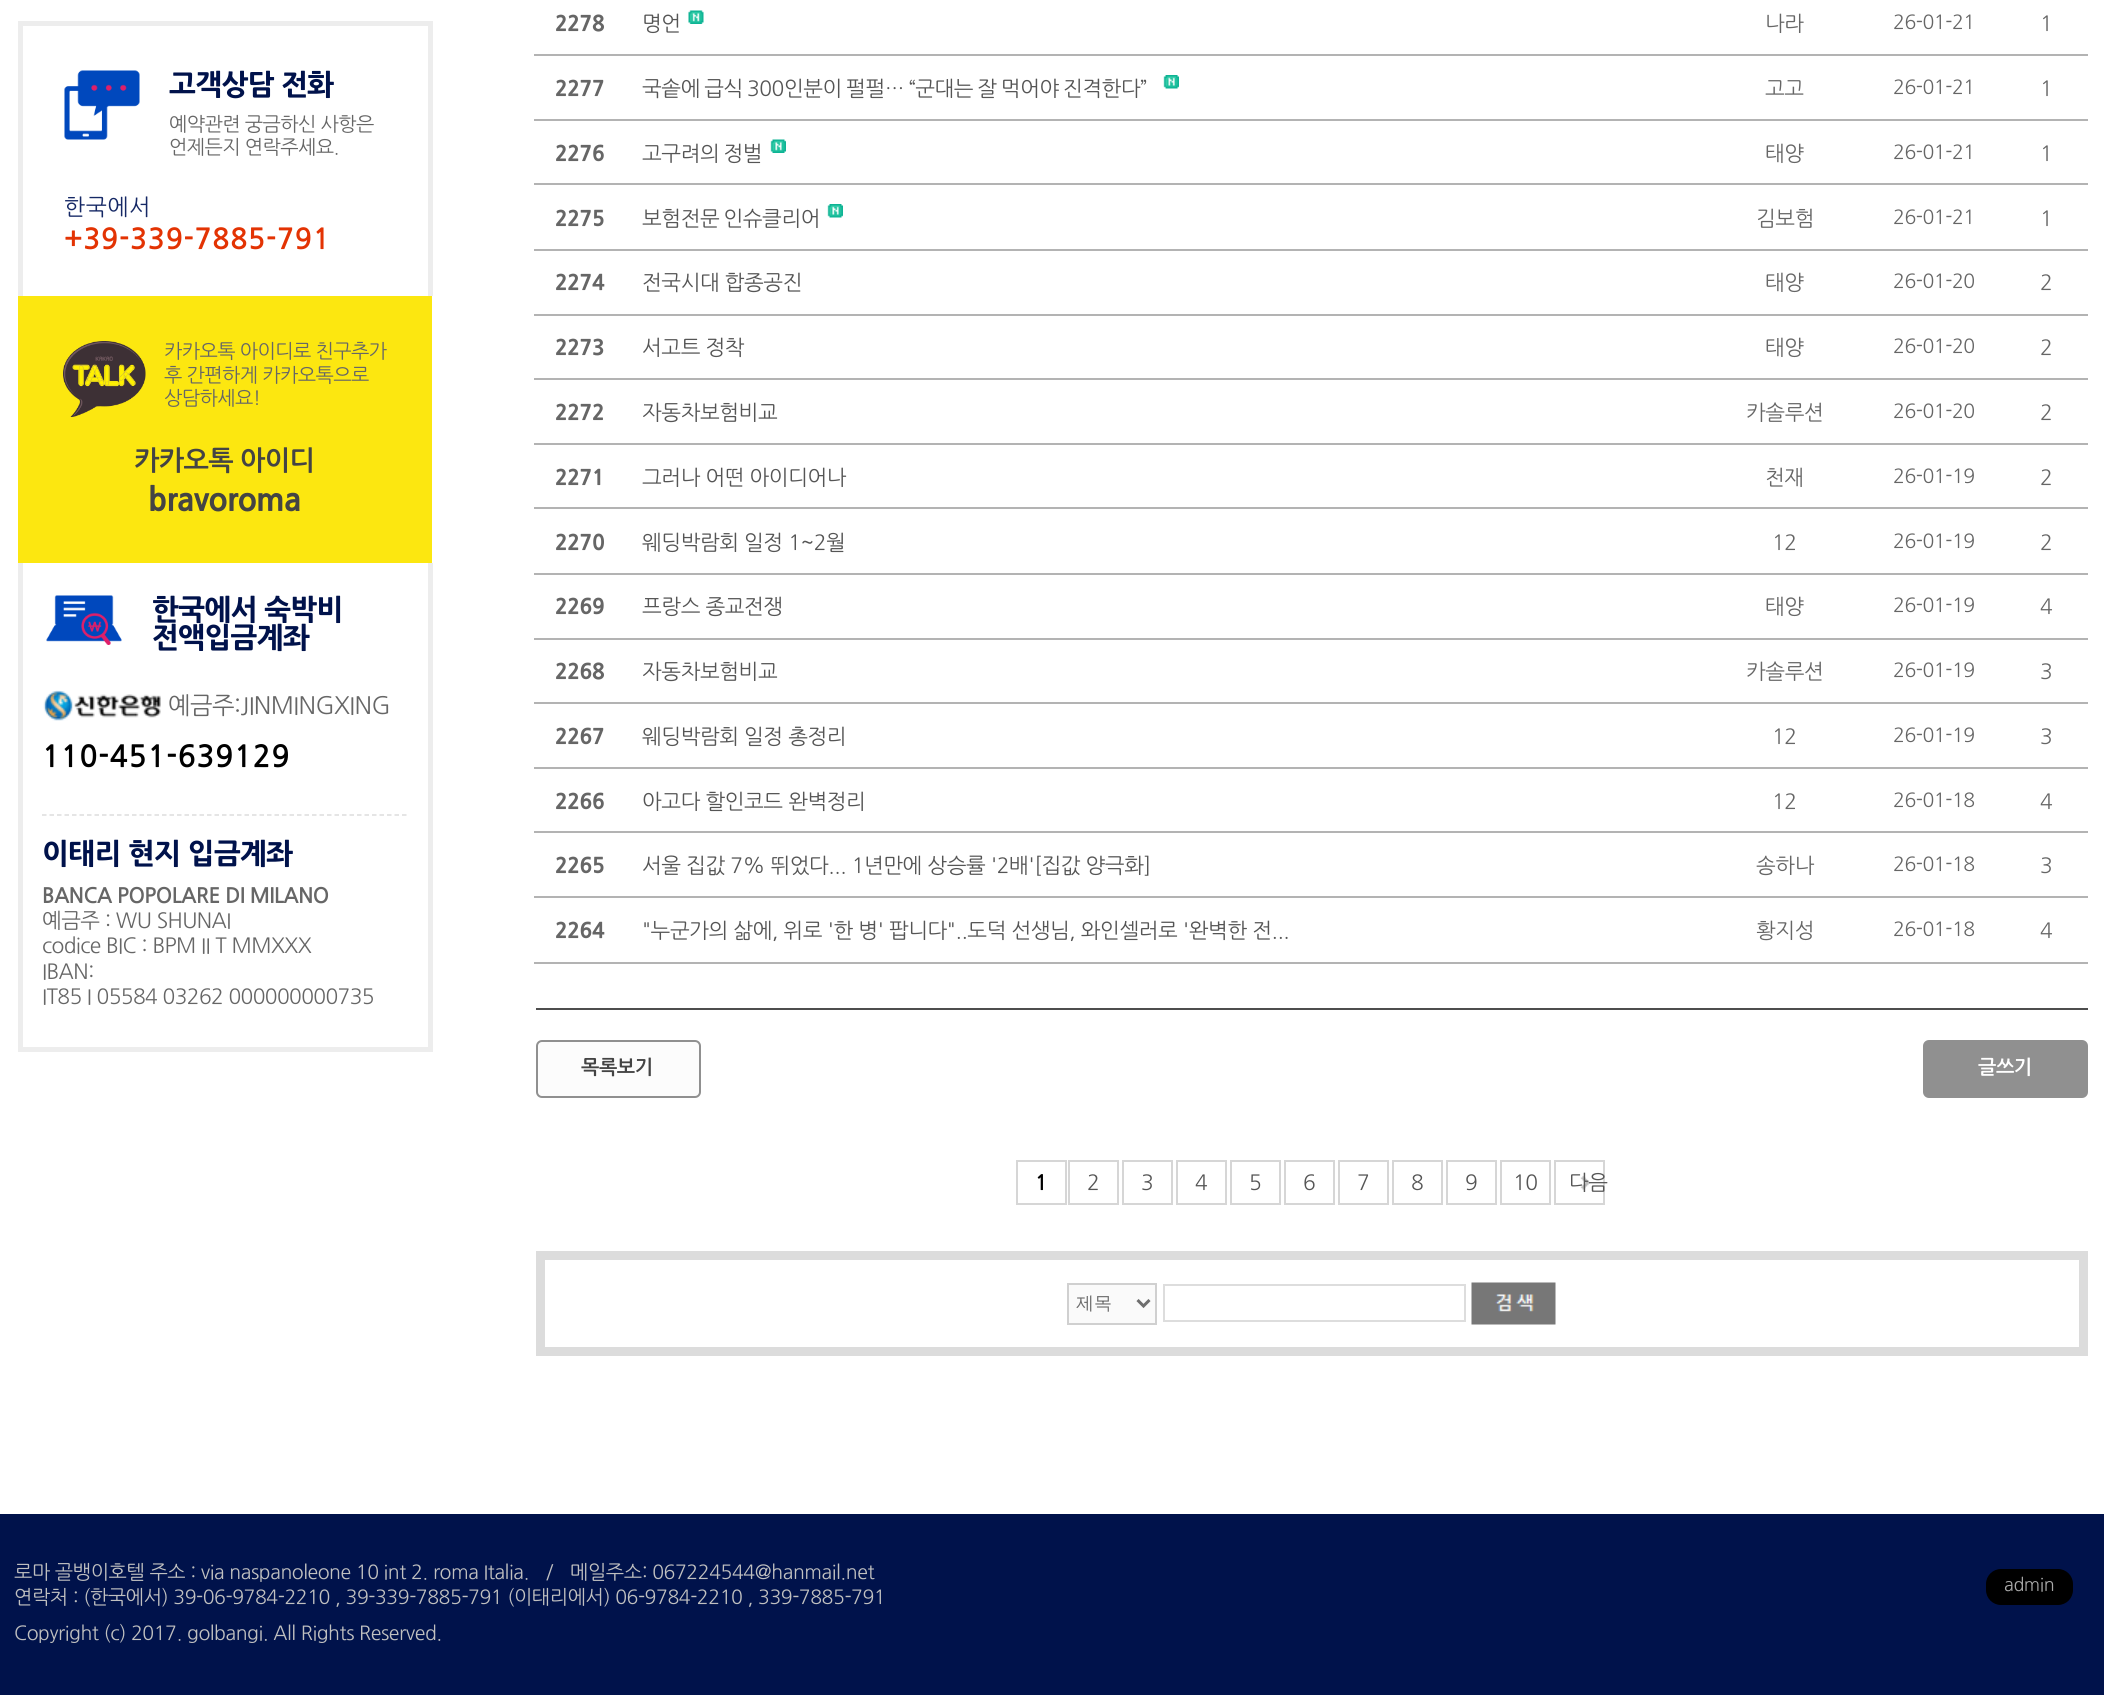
#include <cairo/cairo.h>
#include <math.h>
#include <stddef.h>

static cairo_t *cr;

static void use_color(int r, int g, int b) {
  cairo_set_source_rgb(cr, r / 255.0, g / 255.0, b / 255.0);
}

static void text(double x, double y, const char *s, const char *family, double size, int italic, int bold, int r, int g, int b) {
  cairo_select_font_face(cr, family, italic ? CAIRO_FONT_SLANT_ITALIC : CAIRO_FONT_SLANT_NORMAL,
    bold ? CAIRO_FONT_WEIGHT_BOLD : CAIRO_FONT_WEIGHT_NORMAL);
  cairo_set_font_size(cr, size);
  use_color(r, g, b);
  cairo_move_to(cr, x, y);
  cairo_show_text(cr, s);
}

static void spaced_text(double x, double y, const char *s, double letter, double word) {
  cairo_move_to(cr, x, y);
  while (*s) {
    char ch[5] = {0};
    int n = 0;
    do ch[n++] = *s++; while ((*s & 0xC0) == 0x80);
    cairo_show_text(cr, ch);
    cairo_rel_move_to(cr, letter + word * (*ch == ' '), 0);
  }
}

static void box(double x, double y, double w, double h, int r, int g, int b) {
  use_color(r, g, b);
  cairo_rectangle(cr, x, y, w, h);
  cairo_fill(cr);
}

static void round_rect(double x, double y, double w, double h, double r) {
  cairo_new_sub_path(cr);
  cairo_arc(cr, x + w - r, y + h - r, r, 0, M_PI / 2);
  cairo_arc(cr, x + r, y + h - r, r, M_PI / 2, M_PI);
  cairo_arc(cr, x + r, y + r, r, M_PI, 1.5 * M_PI);
  cairo_arc(cr, x + w - r, y + r, r, 1.5 * M_PI, 2 * M_PI);
  cairo_close_path(cr);
}

static void picture(const char *path, double x, double y, double w, double h) {
  cairo_surface_t *image = cairo_image_surface_create_from_png(path);
  cairo_save(cr);
  cairo_set_source_surface(cr, image, x, y);
  cairo_rectangle(cr, x, y, w, h);
  cairo_fill(cr);
  cairo_restore(cr);
  cairo_surface_destroy(image);
}

static void draw(void) {
  use_color(255, 255, 255);
  cairo_paint(cr);
  box(18, 21, 414, 5, 237, 237, 237);
  box(428, 21, 5, 275, 237, 237, 237);
  box(18, 21, 5, 275, 237, 237, 237);
  picture("img_01.png", 64, 70, 76, 70);
  box(18, 296, 414, 267, 252, 231, 16);
  picture("img_02.png", 63, 341, 83, 76);
  box(428, 563, 5, 489, 237, 237, 237);
  box(18, 1047, 414, 5, 237, 237, 237);
  box(18, 563, 5, 489, 237, 237, 237);
  picture("img_03.png", 46, 595, 76, 50);
  picture("img_04.png", 43, 690, 118, 31);
  cairo_new_path(cr);
  cairo_move_to(cr, 42, 815);
  cairo_line_to(cr, 406.5, 815);
  use_color(221, 221, 221);
  cairo_set_line_width(cr, 1.5);
  cairo_set_dash(cr, (double[]){4.5, 3}, 2, 0);
  cairo_stroke(cr);
  box(534, 54, 1554, 2, 179, 179, 179);
  picture("img_05.png", 688, 10, 16, 14);
  box(534, 119, 1554, 2, 179, 179, 179);
  picture("img_06.png", 1163, 75, 16, 14);
  box(534, 183, 1554, 2, 179, 179, 179);
  picture("img_07.png", 770, 139, 16, 14);
  box(534, 249, 1554, 2, 179, 179, 179);
  picture("img_08.png", 827, 204, 16, 14);
  box(534, 314, 1554, 2, 179, 179, 179);
  box(534, 378, 1554, 2, 179, 179, 179);
  box(534, 443, 1554, 2, 179, 179, 179);
  box(534, 507, 1554, 2, 179, 179, 179);
  box(534, 573, 1554, 2, 179, 179, 179);
  box(534, 638, 1554, 2, 179, 179, 179);
  box(534, 702, 1554, 2, 179, 179, 179);
  box(534, 767, 1554, 2, 179, 179, 179);
  box(534, 831, 1554, 2, 179, 179, 179);
  box(534, 896, 1554, 2, 179, 179, 179);
  box(534, 962, 1554, 2, 179, 179, 179);
  box(536, 1008, 1552, 2, 77, 77, 77);
  use_color(252, 252, 252);
  round_rect(537, 1041, 163, 56, 5);
  cairo_fill_preserve(cr);
  use_color(144, 144, 144);
  cairo_set_line_width(cr, 2);
  cairo_set_dash(cr, NULL, 0, 0);
  cairo_stroke(cr);
  round_rect(1924, 1041, 163, 56, 5);
  cairo_fill_preserve(cr);
  cairo_stroke(cr);
  cairo_rectangle(cr, 1017, 1161, 49, 43);
  use_color(214, 214, 214);
  cairo_stroke(cr);
  cairo_rectangle(cr, 1069, 1161, 49, 43);
  cairo_stroke(cr);
  cairo_rectangle(cr, 1123, 1161, 49, 43);
  cairo_stroke(cr);
  cairo_rectangle(cr, 1177, 1161, 49, 43);
  cairo_stroke(cr);
  cairo_rectangle(cr, 1231, 1161, 49, 43);
  cairo_stroke(cr);
  cairo_rectangle(cr, 1285, 1161, 49, 43);
  cairo_stroke(cr);
  cairo_rectangle(cr, 1339, 1161, 49, 43);
  cairo_stroke(cr);
  cairo_rectangle(cr, 1393, 1161, 49, 43);
  cairo_stroke(cr);
  cairo_rectangle(cr, 1447, 1161, 49, 43);
  cairo_stroke(cr);
  cairo_rectangle(cr, 1501, 1161, 49, 43);
  cairo_stroke(cr);
  picture("img_09.png", 1580, 1175, 11, 15);
  cairo_rectangle(cr, 1555, 1161, 49, 43);
  cairo_stroke(cr);
  cairo_rectangle(cr, 540.5, 1255.5, 1543, 96);
  use_color(220, 220, 220);
  cairo_set_line_width(cr, 9);
  cairo_stroke(cr);
  use_color(250, 250, 250);
  cairo_rectangle(cr, 1068, 1284, 88, 40);
  cairo_fill_preserve(cr);
  use_color(208, 208, 208);
  cairo_set_line_width(cr, 2);
  cairo_stroke(cr);
  cairo_new_path(cr);
  cairo_move_to(cr, 1137.5, 1300);
  cairo_line_to(cr, 1143.5, 1306);
  cairo_line_to(cr, 1149.5, 1300);
  use_color(110, 110, 110);
  cairo_set_line_width(cr, 3);
  cairo_stroke(cr);
  cairo_rectangle(cr, 1164, 1285, 301, 36);
  use_color(221, 221, 221);
  cairo_set_line_width(cr, 2);
  cairo_stroke(cr);
  picture("img_10.png", 1471, 1282, 85, 43);
  box(0, 1514, 2104, 181, 0, 18, 75);
  use_color(0, 0, 0);
  round_rect(1986, 1569, 87, 36, 15);
  cairo_fill(cr);
  cairo_select_font_face(cr, "NanumGothic ExtraBold", CAIRO_FONT_SLANT_NORMAL, CAIRO_FONT_WEIGHT_NORMAL);
  cairo_set_font_size(cr, 28.5);
  use_color(0, 18, 75);
  spaced_text(169, 95, "고객상담 전화", -0.6, 0);
  cairo_select_font_face(cr, "NanumGothic", CAIRO_FONT_SLANT_NORMAL, CAIRO_FONT_WEIGHT_NORMAL);
  cairo_set_font_size(cr, 19.5);
  use_color(102, 102, 102);
  spaced_text(169, 131, "예약관련 궁금하신 사항은", -0.6, 0);
  spaced_text(169, 154, "언제든지 연락주세요.", -0.6, 0);
  cairo_set_font_size(cr, 22.5);
  use_color(21, 40, 101);
  spaced_text(64, 215, "한국에서", 0.6, 0);
  cairo_select_font_face(cr, "NanumGothic", CAIRO_FONT_SLANT_NORMAL, CAIRO_FONT_WEIGHT_BOLD);
  cairo_set_font_size(cr, 28.5);
  use_color(227, 51, 3);
  spaced_text(64, 249, "+39-339-7885-791", 0.6, 0);
  cairo_select_font_face(cr, "NanumGothic", CAIRO_FONT_SLANT_NORMAL, CAIRO_FONT_WEIGHT_NORMAL);
  cairo_set_font_size(cr, 19.5);
  use_color(102, 102, 102);
  spaced_text(164, 358, "카카오톡 아이디로 친구추가", -0.6, 0);
  spaced_text(164, 382, "후 간편하게 카카오톡으로", -0.6, 0);
  spaced_text(164, 405, "상담하세요!", -0.6, 0);
  cairo_select_font_face(cr, "NanumGothic", CAIRO_FONT_SLANT_NORMAL, CAIRO_FONT_WEIGHT_BOLD);
  cairo_set_font_size(cr, 27);
  use_color(68, 68, 68);
  spaced_text(134, 470, "카카오톡 아이디", -0.6, 0);
  cairo_select_font_face(cr, "NanumGothic ExtraBold", CAIRO_FONT_SLANT_NORMAL, CAIRO_FONT_WEIGHT_NORMAL);
  cairo_set_font_size(cr, 31.5);
  spaced_text(148, 511, "bravoroma", -0.6, 0);
  cairo_set_font_size(cr, 28.5);
  use_color(0, 18, 75);
  spaced_text(152, 620, "한국에서 숙박비", -0.6, 0);
  spaced_text(152, 648, "전액입금계좌", -0.6, 0);
  cairo_select_font_face(cr, "NanumGothic", CAIRO_FONT_SLANT_NORMAL, CAIRO_FONT_WEIGHT_NORMAL);
  cairo_set_font_size(cr, 24);
  use_color(102, 102, 102);
  spaced_text(168, 714, "예금주:JINMINGXING", -0.6, 0);
  cairo_select_font_face(cr, "NanumGothic", CAIRO_FONT_SLANT_NORMAL, CAIRO_FONT_WEIGHT_BOLD);
  cairo_set_font_size(cr, 30);
  use_color(0, 0, 0);
  spaced_text(42, 767, "110-451-639129", 0.6, 0);
  cairo_select_font_face(cr, "NanumGothic ExtraBold", CAIRO_FONT_SLANT_NORMAL, CAIRO_FONT_WEIGHT_NORMAL);
  cairo_set_font_size(cr, 28.5);
  use_color(0, 18, 75);
  spaced_text(42, 864, "이태리 현지 입금계좌", -0.6, 0);
  cairo_select_font_face(cr, "NanumGothic", CAIRO_FONT_SLANT_NORMAL, CAIRO_FONT_WEIGHT_BOLD);
  cairo_set_font_size(cr, 21);
  use_color(102, 102, 102);
  spaced_text(42, 903, "BANCA POPOLARE DI MILANO", -0.6, 0);
  cairo_select_font_face(cr, "NanumGothic", CAIRO_FONT_SLANT_NORMAL, CAIRO_FONT_WEIGHT_NORMAL);
  spaced_text(42, 928, "예금주 : WU SHUNAI", -0.6, 0);
  spaced_text(42, 953, "codice BIC : BPM II T MMXXX", -0.6, 0);
  spaced_text(42, 979, "IBAN:", -0.6, 0);
  spaced_text(42, 1004, "IT85 I 05584 03262 000000000735", -0.6, 0);
  cairo_select_font_face(cr, "NanumGothic ExtraBold", CAIRO_FONT_SLANT_NORMAL, CAIRO_FONT_WEIGHT_NORMAL);
  spaced_text(555, 31, "2278", -0.42, 0);
  cairo_select_font_face(cr, "NanumGothic", CAIRO_FONT_SLANT_NORMAL, CAIRO_FONT_WEIGHT_NORMAL);
  use_color(85, 85, 85);
  spaced_text(642, 31, "명언", -0.42, 0);
  use_color(102, 102, 102);
  spaced_text(1765, 31, "나라", -0.42, 0);
  cairo_set_font_size(cr, 19.5);
  spaced_text(1893, 29, "26-01-21", -0.42, 0);
  cairo_set_font_size(cr, 21);
  spaced_text(2040, 31, "1", -0.42, 0);
  cairo_select_font_face(cr, "NanumGothic ExtraBold", CAIRO_FONT_SLANT_NORMAL, CAIRO_FONT_WEIGHT_NORMAL);
  spaced_text(555, 96, "2277", -0.42, 0);
  cairo_select_font_face(cr, "NanumGothic", CAIRO_FONT_SLANT_NORMAL, CAIRO_FONT_WEIGHT_NORMAL);
  use_color(85, 85, 85);
  spaced_text(642, 96, "국솥에 급식 300인분이 펄펄… “군대는 잘 먹어야 진격한다”", -0.42, -1.25);
  use_color(102, 102, 102);
  spaced_text(1765, 96, "고고", -0.42, 0);
  cairo_set_font_size(cr, 19.5);
  spaced_text(1893, 94, "26-01-21", -0.42, 0);
  cairo_set_font_size(cr, 21);
  spaced_text(2040, 96, "1", -0.42, 0);
  cairo_select_font_face(cr, "NanumGothic ExtraBold", CAIRO_FONT_SLANT_NORMAL, CAIRO_FONT_WEIGHT_NORMAL);
  spaced_text(555, 161, "2276", -0.42, 0);
  cairo_select_font_face(cr, "NanumGothic", CAIRO_FONT_SLANT_NORMAL, CAIRO_FONT_WEIGHT_NORMAL);
  use_color(85, 85, 85);
  spaced_text(642, 161, "고구려의 정벌", -0.42, -1.25);
  use_color(102, 102, 102);
  spaced_text(1765, 161, "태양", -0.42, 0);
  cairo_set_font_size(cr, 19.5);
  spaced_text(1893, 159, "26-01-21", -0.42, 0);
  cairo_set_font_size(cr, 21);
  spaced_text(2040, 161, "1", -0.42, 0);
  cairo_select_font_face(cr, "NanumGothic ExtraBold", CAIRO_FONT_SLANT_NORMAL, CAIRO_FONT_WEIGHT_NORMAL);
  spaced_text(555, 226, "2275", -0.42, 0);
  cairo_select_font_face(cr, "NanumGothic", CAIRO_FONT_SLANT_NORMAL, CAIRO_FONT_WEIGHT_NORMAL);
  use_color(85, 85, 85);
  spaced_text(642, 226, "보험전문 인슈클리어", -0.42, -1.25);
  use_color(102, 102, 102);
  spaced_text(1756, 226, "김보험", -0.42, 0);
  cairo_set_font_size(cr, 19.5);
  spaced_text(1893, 224, "26-01-21", -0.42, 0);
  cairo_set_font_size(cr, 21);
  spaced_text(2040, 226, "1", -0.42, 0);
  cairo_select_font_face(cr, "NanumGothic ExtraBold", CAIRO_FONT_SLANT_NORMAL, CAIRO_FONT_WEIGHT_NORMAL);
  spaced_text(555, 290, "2274", -0.42, 0);
  cairo_select_font_face(cr, "NanumGothic", CAIRO_FONT_SLANT_NORMAL, CAIRO_FONT_WEIGHT_NORMAL);
  use_color(85, 85, 85);
  spaced_text(642, 290, "전국시대 합종공진", -0.42, 0);
  use_color(102, 102, 102);
  spaced_text(1765, 290, "태양", -0.42, 0);
  cairo_set_font_size(cr, 19.5);
  spaced_text(1893, 288, "26-01-20", -0.42, 0);
  cairo_set_font_size(cr, 21);
  spaced_text(2040, 290, "2", -0.42, 0);
  cairo_select_font_face(cr, "NanumGothic ExtraBold", CAIRO_FONT_SLANT_NORMAL, CAIRO_FONT_WEIGHT_NORMAL);
  spaced_text(555, 355, "2273", -0.42, 0);
  cairo_select_font_face(cr, "NanumGothic", CAIRO_FONT_SLANT_NORMAL, CAIRO_FONT_WEIGHT_NORMAL);
  use_color(85, 85, 85);
  spaced_text(642, 355, "서고트 정착", -0.42, 0);
  use_color(102, 102, 102);
  spaced_text(1765, 355, "태양", -0.42, 0);
  cairo_set_font_size(cr, 19.5);
  spaced_text(1893, 353, "26-01-20", -0.42, 0);
  cairo_set_font_size(cr, 21);
  spaced_text(2040, 355, "2", -0.42, 0);
  cairo_select_font_face(cr, "NanumGothic ExtraBold", CAIRO_FONT_SLANT_NORMAL, CAIRO_FONT_WEIGHT_NORMAL);
  spaced_text(555, 420, "2272", -0.42, 0);
  cairo_select_font_face(cr, "NanumGothic", CAIRO_FONT_SLANT_NORMAL, CAIRO_FONT_WEIGHT_NORMAL);
  use_color(85, 85, 85);
  spaced_text(642, 420, "자동차보험비교", -0.42, 0);
  use_color(102, 102, 102);
  spaced_text(1746, 420, "카솔루션", -0.42, 0);
  cairo_set_font_size(cr, 19.5);
  spaced_text(1893, 418, "26-01-20", -0.42, 0);
  cairo_set_font_size(cr, 21);
  spaced_text(2040, 420, "2", -0.42, 0);
  cairo_select_font_face(cr, "NanumGothic ExtraBold", CAIRO_FONT_SLANT_NORMAL, CAIRO_FONT_WEIGHT_NORMAL);
  spaced_text(555, 485, "2271", -0.42, 0);
  cairo_select_font_face(cr, "NanumGothic", CAIRO_FONT_SLANT_NORMAL, CAIRO_FONT_WEIGHT_NORMAL);
  use_color(85, 85, 85);
  spaced_text(642, 485, "그러나 어떤 아이디어나", -0.42, 0);
  use_color(102, 102, 102);
  spaced_text(1765, 485, "천재", -0.42, 0);
  cairo_set_font_size(cr, 19.5);
  spaced_text(1893, 483, "26-01-19", -0.42, 0);
  cairo_set_font_size(cr, 21);
  spaced_text(2040, 485, "2", -0.42, 0);
  cairo_select_font_face(cr, "NanumGothic ExtraBold", CAIRO_FONT_SLANT_NORMAL, CAIRO_FONT_WEIGHT_NORMAL);
  spaced_text(555, 550, "2270", -0.42, 0);
  cairo_select_font_face(cr, "NanumGothic", CAIRO_FONT_SLANT_NORMAL, CAIRO_FONT_WEIGHT_NORMAL);
  use_color(85, 85, 85);
  spaced_text(642, 550, "웨딩박람회 일정 1~2월", -0.42, 0);
  use_color(102, 102, 102);
  spaced_text(1772, 550, "12", -0.42, 0);
  cairo_set_font_size(cr, 19.5);
  spaced_text(1893, 548, "26-01-19", -0.42, 0);
  cairo_set_font_size(cr, 21);
  spaced_text(2040, 550, "2", -0.42, 0);
  cairo_select_font_face(cr, "NanumGothic ExtraBold", CAIRO_FONT_SLANT_NORMAL, CAIRO_FONT_WEIGHT_NORMAL);
  spaced_text(555, 614, "2269", -0.42, 0);
  cairo_select_font_face(cr, "NanumGothic", CAIRO_FONT_SLANT_NORMAL, CAIRO_FONT_WEIGHT_NORMAL);
  use_color(85, 85, 85);
  spaced_text(642, 614, "프랑스 종교전쟁", -0.42, 0);
  use_color(102, 102, 102);
  spaced_text(1765, 614, "태양", -0.42, 0);
  cairo_set_font_size(cr, 19.5);
  spaced_text(1893, 612, "26-01-19", -0.42, 0);
  cairo_set_font_size(cr, 21);
  spaced_text(2040, 614, "4", -0.42, 0);
  cairo_select_font_face(cr, "NanumGothic ExtraBold", CAIRO_FONT_SLANT_NORMAL, CAIRO_FONT_WEIGHT_NORMAL);
  spaced_text(555, 679, "2268", -0.42, 0);
  cairo_select_font_face(cr, "NanumGothic", CAIRO_FONT_SLANT_NORMAL, CAIRO_FONT_WEIGHT_NORMAL);
  use_color(85, 85, 85);
  spaced_text(642, 679, "자동차보험비교", -0.42, 0);
  use_color(102, 102, 102);
  spaced_text(1746, 679, "카솔루션", -0.42, 0);
  cairo_set_font_size(cr, 19.5);
  spaced_text(1893, 677, "26-01-19", -0.42, 0);
  cairo_set_font_size(cr, 21);
  spaced_text(2040, 679, "3", -0.42, 0);
  cairo_select_font_face(cr, "NanumGothic ExtraBold", CAIRO_FONT_SLANT_NORMAL, CAIRO_FONT_WEIGHT_NORMAL);
  spaced_text(555, 744, "2267", -0.42, 0);
  cairo_select_font_face(cr, "NanumGothic", CAIRO_FONT_SLANT_NORMAL, CAIRO_FONT_WEIGHT_NORMAL);
  use_color(85, 85, 85);
  spaced_text(642, 744, "웨딩박람회 일정 총정리", -0.42, 0);
  use_color(102, 102, 102);
  spaced_text(1772, 744, "12", -0.42, 0);
  cairo_set_font_size(cr, 19.5);
  spaced_text(1893, 742, "26-01-19", -0.42, 0);
  cairo_set_font_size(cr, 21);
  spaced_text(2040, 744, "3", -0.42, 0);
  cairo_select_font_face(cr, "NanumGothic ExtraBold", CAIRO_FONT_SLANT_NORMAL, CAIRO_FONT_WEIGHT_NORMAL);
  spaced_text(555, 809, "2266", -0.42, 0);
  cairo_select_font_face(cr, "NanumGothic", CAIRO_FONT_SLANT_NORMAL, CAIRO_FONT_WEIGHT_NORMAL);
  use_color(85, 85, 85);
  spaced_text(642, 809, "아고다 할인코드 완벽정리", -0.42, 0);
  use_color(102, 102, 102);
  spaced_text(1772, 809, "12", -0.42, 0);
  cairo_set_font_size(cr, 19.5);
  spaced_text(1893, 807, "26-01-18", -0.42, 0);
  cairo_set_font_size(cr, 21);
  spaced_text(2040, 809, "4", -0.42, 0);
  cairo_select_font_face(cr, "NanumGothic ExtraBold", CAIRO_FONT_SLANT_NORMAL, CAIRO_FONT_WEIGHT_NORMAL);
  spaced_text(555, 873, "2265", -0.42, 0);
  cairo_select_font_face(cr, "NanumGothic", CAIRO_FONT_SLANT_NORMAL, CAIRO_FONT_WEIGHT_NORMAL);
  use_color(85, 85, 85);
  spaced_text(642, 873, "서울 집값 7% 뛰었다... 1년만에 상승률 '2배'[집값 양극화]", -0.42, 0);
  use_color(102, 102, 102);
  spaced_text(1756, 873, "송하나", -0.42, 0);
  cairo_set_font_size(cr, 19.5);
  spaced_text(1893, 871, "26-01-18", -0.42, 0);
  cairo_set_font_size(cr, 21);
  spaced_text(2040, 873, "3", -0.42, 0);
  cairo_select_font_face(cr, "NanumGothic ExtraBold", CAIRO_FONT_SLANT_NORMAL, CAIRO_FONT_WEIGHT_NORMAL);
  spaced_text(555, 938, "2264", -0.42, 0);
  cairo_select_font_face(cr, "NanumGothic", CAIRO_FONT_SLANT_NORMAL, CAIRO_FONT_WEIGHT_NORMAL);
  use_color(85, 85, 85);
  spaced_text(642, 938, "\"누군가의 삶에, 위로 '한 병' 팝니다\"..도덕 선생님, 와인셀러로 '완벽한 전...", -0.42, 0);
  use_color(102, 102, 102);
  spaced_text(1756, 938, "황지성", -0.42, 0);
  cairo_set_font_size(cr, 19.5);
  spaced_text(1893, 936, "26-01-18", -0.42, 0);
  cairo_set_font_size(cr, 21);
  spaced_text(2040, 938, "4", -0.42, 0);
  cairo_select_font_face(cr, "NanumGothic", CAIRO_FONT_SLANT_NORMAL, CAIRO_FONT_WEIGHT_BOLD);
  cairo_set_font_size(cr, 19.5);
  use_color(68, 68, 68);
  spaced_text(581, 1074, "목록보기", -0.42, 0);
  use_color(255, 255, 255);
  spaced_text(1978, 1074, "글쓰기", -0.42, 0);
  cairo_set_font_size(cr, 21);
  use_color(0, 0, 0);
  spaced_text(1035, 1190, "1", -0.42, 0);
  cairo_select_font_face(cr, "NanumGothic", CAIRO_FONT_SLANT_NORMAL, CAIRO_FONT_WEIGHT_NORMAL);
  use_color(85, 85, 85);
  spaced_text(1087, 1190, "2", -0.42, 0);
  spaced_text(1141, 1190, "3", -0.42, 0);
  spaced_text(1195, 1190, "4", -0.42, 0);
  spaced_text(1249, 1190, "5", -0.42, 0);
  spaced_text(1303, 1190, "6", -0.42, 0);
  spaced_text(1357, 1190, "7", -0.42, 0);
  spaced_text(1411, 1190, "8", -0.42, 0);
  spaced_text(1465, 1190, "9", -0.42, 0);
  spaced_text(1513, 1190, "10", -0.42, 0);
  spaced_text(1569, 1190, "다음", -0.42, 0);
  text(1076, 1309, "제목", "WenQuanYi Zen Hei Medium", 18, 0, 0, 110, 110, 110);
  cairo_select_font_face(cr, "NanumGothic", CAIRO_FONT_SLANT_NORMAL, CAIRO_FONT_WEIGHT_NORMAL);
  cairo_set_font_size(cr, 19.5);
  use_color(192, 192, 192);
  spaced_text(14, 1579, "로마 골뱅이호텔 주소 : via naspanoleone 10 int 2. roma Italia.", -0.42, 0);
  spaced_text(546, 1579, "/", -0.42, 0);
  spaced_text(570, 1579, "메일주소: 067224544@hanmail.net", -0.42, 0);
  cairo_set_font_size(cr, 18);
  use_color(170, 170, 170);
  spaced_text(2004, 1591, "admin", -0.42, 0);
  cairo_set_font_size(cr, 19.5);
  use_color(192, 192, 192);
  spaced_text(14, 1604, "연락처 : (한국에서) 39-06-9784-2210 , 39-339-7885-791 (이태리에서) 06-9784-2210 , 339-7885-791", -0.42, 0);
  spaced_text(14, 1640, "Copyright (c) 2017. golbangi. All Rights Reserved.", -0.42, 0);
}

int main(void) {
  cairo_surface_t *surface = cairo_image_surface_create(CAIRO_FORMAT_RGB24, 2104, 1695);
  cr = cairo_create(surface);
  cairo_font_options_t *options = cairo_font_options_create();
  cairo_font_options_set_hint_metrics(options, CAIRO_HINT_METRICS_OFF);
  cairo_font_options_set_hint_style(options, CAIRO_HINT_STYLE_NONE);
  cairo_set_font_options(cr, options);
  cairo_set_miter_limit(cr, 4);
  draw();
  cairo_surface_write_to_png(surface, "out.png");
  cairo_font_options_destroy(options);
  cairo_destroy(cr);
  cairo_surface_destroy(surface);
  return 0;
}
